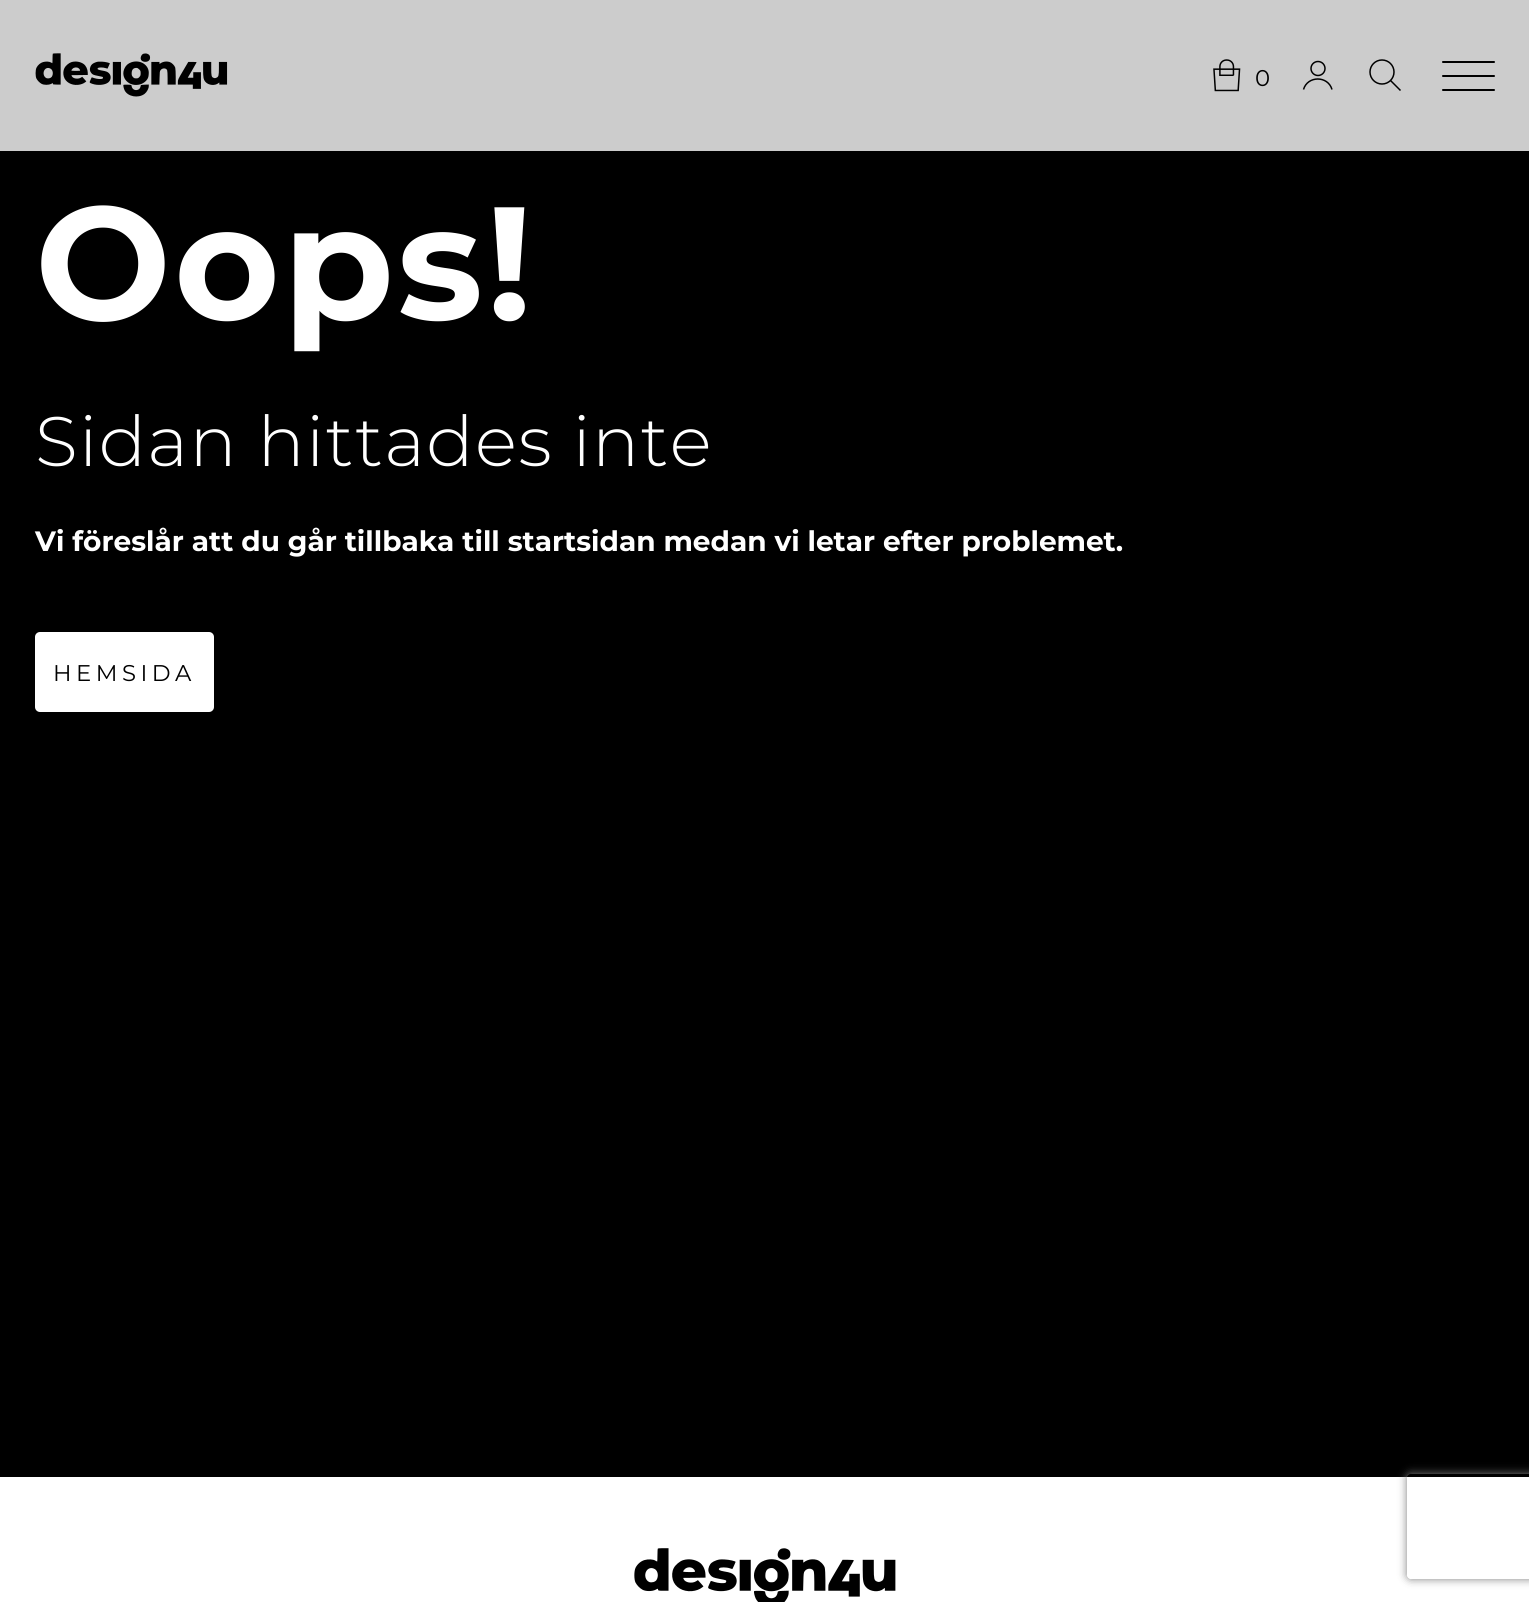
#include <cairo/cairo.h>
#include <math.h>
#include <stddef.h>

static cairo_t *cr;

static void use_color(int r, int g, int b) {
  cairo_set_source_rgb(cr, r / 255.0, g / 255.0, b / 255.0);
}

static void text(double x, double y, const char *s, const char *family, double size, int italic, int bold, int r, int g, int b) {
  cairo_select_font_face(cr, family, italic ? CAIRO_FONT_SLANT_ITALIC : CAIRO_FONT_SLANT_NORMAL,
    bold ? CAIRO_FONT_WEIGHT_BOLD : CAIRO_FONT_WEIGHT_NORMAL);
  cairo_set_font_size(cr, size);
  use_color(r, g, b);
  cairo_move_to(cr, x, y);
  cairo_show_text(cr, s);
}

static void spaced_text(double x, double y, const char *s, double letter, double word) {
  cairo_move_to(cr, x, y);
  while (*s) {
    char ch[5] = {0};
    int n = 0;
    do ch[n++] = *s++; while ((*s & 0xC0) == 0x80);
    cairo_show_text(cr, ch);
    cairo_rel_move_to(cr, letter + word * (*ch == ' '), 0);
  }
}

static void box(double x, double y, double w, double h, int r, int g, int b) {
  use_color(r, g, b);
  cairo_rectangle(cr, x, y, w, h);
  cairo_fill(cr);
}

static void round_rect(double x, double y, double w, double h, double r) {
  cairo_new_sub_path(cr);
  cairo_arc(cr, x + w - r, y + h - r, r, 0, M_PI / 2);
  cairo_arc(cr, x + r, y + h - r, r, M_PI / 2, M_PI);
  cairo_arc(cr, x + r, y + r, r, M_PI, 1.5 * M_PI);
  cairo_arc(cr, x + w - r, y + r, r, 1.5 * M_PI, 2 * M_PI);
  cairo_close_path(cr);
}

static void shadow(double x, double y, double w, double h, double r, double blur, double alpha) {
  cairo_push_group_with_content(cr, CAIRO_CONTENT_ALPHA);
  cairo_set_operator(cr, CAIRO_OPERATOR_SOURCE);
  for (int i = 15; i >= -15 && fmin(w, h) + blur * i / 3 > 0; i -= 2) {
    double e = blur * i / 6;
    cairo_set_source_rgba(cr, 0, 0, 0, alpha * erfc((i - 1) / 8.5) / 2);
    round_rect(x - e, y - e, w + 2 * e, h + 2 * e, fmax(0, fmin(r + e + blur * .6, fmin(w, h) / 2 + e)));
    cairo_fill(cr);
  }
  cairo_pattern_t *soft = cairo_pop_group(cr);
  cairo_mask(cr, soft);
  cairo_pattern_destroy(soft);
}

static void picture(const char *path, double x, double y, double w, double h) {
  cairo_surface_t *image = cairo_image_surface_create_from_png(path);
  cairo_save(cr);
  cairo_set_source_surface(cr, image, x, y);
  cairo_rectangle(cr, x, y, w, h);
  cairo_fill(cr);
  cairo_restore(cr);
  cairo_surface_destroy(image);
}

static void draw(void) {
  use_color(0, 0, 0);
  cairo_paint(cr);
  box(0, 0, 1529, 151, 204, 204, 204);
  picture("img_01.png", 35, 53, 193, 44);
  picture("img_02.png", 1213, 59, 28, 33);
  cairo_arc(cr, 1318, 68.5, 7, 0, 2 * M_PI);
  use_color(0, 0, 0);
  cairo_set_line_width(cr, 1.5);
  cairo_stroke(cr);
  cairo_new_path(cr);
  cairo_move_to(cr, 1332, 89.5);
  cairo_curve_to(cr, 1328, 75.5, 1307.5, 75.5, 1303.5, 89.5);
  cairo_stroke(cr);
  cairo_arc(cr, 1382, 72, 12, 0, 2 * M_PI);
  cairo_stroke(cr);
  cairo_new_path(cr);
  cairo_move_to(cr, 1400.5, 90.5);
  cairo_line_to(cr, 1390.5, 80.5);
  cairo_stroke(cr);
  round_rect(1442, 75, 53, 2, 1);
  cairo_fill(cr);
  round_rect(1442, 61, 53, 2, 1);
  cairo_fill(cr);
  round_rect(1442, 89, 53, 2, 1);
  cairo_fill(cr);
  use_color(255, 255, 255);
  round_rect(35, 632, 179, 80, 5);
  cairo_fill(cr);
  box(0, 1477, 1529, 125, 255, 255, 255);
  cairo_save(cr);
  cairo_set_fill_rule(cr, CAIRO_FILL_RULE_EVEN_ODD);
  cairo_new_path(cr);
  cairo_move_to(cr, 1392, 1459);
  cairo_line_to(cr, 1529, 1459);
  cairo_line_to(cr, 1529, 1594);
  cairo_line_to(cr, 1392, 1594);
  cairo_close_path(cr);
  cairo_move_to(cr, 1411, 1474);
  cairo_line_to(cr, 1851, 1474);
  cairo_curve_to(cr, 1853, 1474, 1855, 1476, 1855, 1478);
  cairo_line_to(cr, 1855, 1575);
  cairo_curve_to(cr, 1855, 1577, 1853, 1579, 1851, 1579);
  cairo_line_to(cr, 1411, 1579);
  cairo_curve_to(cr, 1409, 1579, 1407, 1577, 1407, 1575);
  cairo_line_to(cr, 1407, 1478);
  cairo_curve_to(cr, 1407, 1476, 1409, 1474, 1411, 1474);
  cairo_close_path(cr);
  cairo_clip(cr);
  use_color(128, 128, 128);
  shadow(1407, 1474, 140, 105, 4, 4.5, 1);
  cairo_restore(cr);
  picture("img_03.png", 634, 1548, 262, 54);
  text(1255, 86, "0", "Montserrat", 22.75, 0, 0, 0, 0, 0);
  cairo_select_font_face(cr, "Montserrat", CAIRO_FONT_SLANT_NORMAL, CAIRO_FONT_WEIGHT_BOLD);
  cairo_set_font_size(cr, 161);
  use_color(255, 255, 255);
  spaced_text(35, 320, "Oops!", 3.25, 0);
  cairo_select_font_face(cr, "Montserrat Light", CAIRO_FONT_SLANT_NORMAL, CAIRO_FONT_WEIGHT_NORMAL);
  cairo_set_font_size(cr, 70);
  spaced_text(35, 466, "Sidan hittades inte", 1.4, 0);
  text(35, 551, "Vi föreslår att du går tillbaka till startsidan medan vi letar efter problemet.", "Montserrat", 28, 0, 1, 255, 255, 255);
  cairo_select_font_face(cr, "Montserrat", CAIRO_FONT_SLANT_NORMAL, CAIRO_FONT_WEIGHT_NORMAL);
  cairo_set_font_size(cr, 22.75);
  use_color(0, 0, 0);
  spaced_text(53, 681, "HEMSIDA", 4.5, 0);
}

int main(void) {
  cairo_surface_t *surface = cairo_image_surface_create(CAIRO_FORMAT_RGB24, 1529, 1602);
  cr = cairo_create(surface);
  cairo_font_options_t *options = cairo_font_options_create();
  cairo_font_options_set_hint_metrics(options, CAIRO_HINT_METRICS_OFF);
  cairo_font_options_set_hint_style(options, CAIRO_HINT_STYLE_NONE);
  cairo_set_font_options(cr, options);
  cairo_set_miter_limit(cr, 4);
  draw();
  cairo_surface_write_to_png(surface, "out.png");
  cairo_font_options_destroy(options);
  cairo_destroy(cr);
  cairo_surface_destroy(surface);
  return 0;
}
